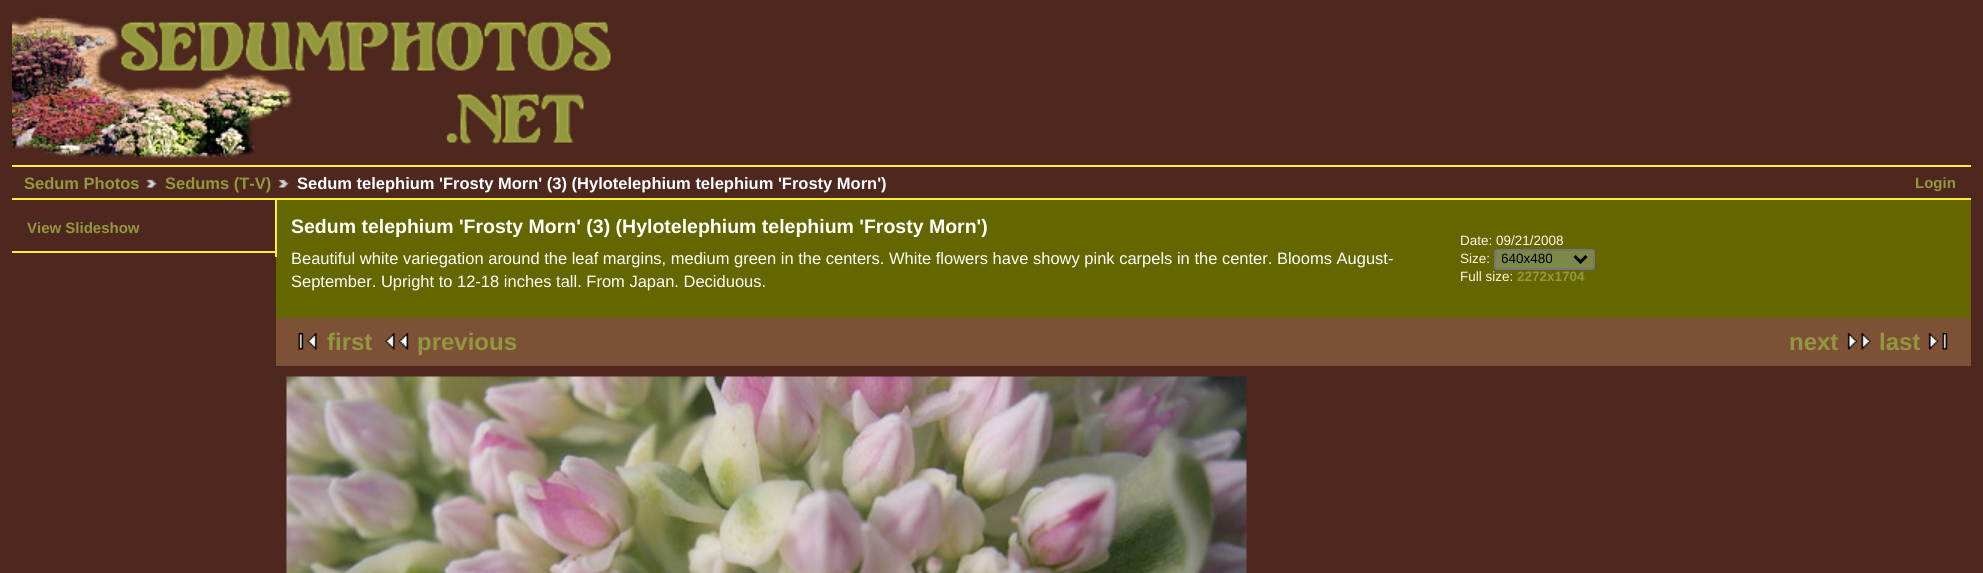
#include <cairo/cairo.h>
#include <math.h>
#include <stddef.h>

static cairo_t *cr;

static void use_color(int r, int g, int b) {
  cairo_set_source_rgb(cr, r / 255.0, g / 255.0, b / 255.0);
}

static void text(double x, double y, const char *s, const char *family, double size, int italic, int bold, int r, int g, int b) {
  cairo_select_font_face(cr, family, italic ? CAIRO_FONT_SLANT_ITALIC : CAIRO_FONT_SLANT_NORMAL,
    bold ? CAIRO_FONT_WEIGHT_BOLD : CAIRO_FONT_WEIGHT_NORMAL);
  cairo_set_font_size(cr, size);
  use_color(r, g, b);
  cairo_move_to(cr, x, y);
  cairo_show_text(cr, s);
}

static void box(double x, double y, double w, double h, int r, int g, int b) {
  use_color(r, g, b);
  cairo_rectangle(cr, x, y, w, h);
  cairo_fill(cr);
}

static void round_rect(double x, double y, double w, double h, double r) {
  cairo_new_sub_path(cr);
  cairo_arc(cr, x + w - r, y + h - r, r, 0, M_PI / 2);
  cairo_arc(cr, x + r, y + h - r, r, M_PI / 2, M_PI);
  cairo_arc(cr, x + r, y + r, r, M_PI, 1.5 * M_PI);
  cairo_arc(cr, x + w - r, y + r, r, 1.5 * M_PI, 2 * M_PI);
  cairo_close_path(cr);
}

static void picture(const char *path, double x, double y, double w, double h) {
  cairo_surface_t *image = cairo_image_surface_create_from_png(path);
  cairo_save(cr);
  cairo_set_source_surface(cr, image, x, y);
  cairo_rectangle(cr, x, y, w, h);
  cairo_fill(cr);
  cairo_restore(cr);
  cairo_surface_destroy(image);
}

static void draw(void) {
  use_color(78, 40, 30);
  cairo_paint(cr);
  picture("img_01.png", 12, 15, 599, 144);
  box(12, 165, 1959, 2, 252, 236, 62);
  box(12, 198, 1959, 2, 252, 236, 62);
  picture("img_02.png", 146, 179, 11, 9);
  picture("img_03.png", 278, 179, 11, 9);
  box(276, 200, 1695, 118, 100, 102, 0);
  box(275, 200, 2, 57, 252, 236, 62);
  box(12, 251, 263, 2, 252, 236, 62);
  use_color(126, 136, 73);
  round_rect(1495, 250, 99, 19, 2);
  cairo_fill_preserve(cr);
  use_color(118, 118, 118);
  cairo_stroke(cr);
  cairo_new_path(cr);
  cairo_move_to(cr, 1574.5, 256);
  cairo_line_to(cr, 1580.5, 262);
  cairo_line_to(cr, 1586.5, 256);
  use_color(0, 0, 0);
  cairo_set_line_width(cr, 3);
  cairo_stroke(cr);
  box(276, 318, 1695, 48, 124, 81, 54);
  picture("img_04.png", 298, 333, 19, 17);
  picture("img_05.png", 385, 333, 24, 17);
  picture("img_06.png", 1847, 333, 24, 17);
  picture("img_07.png", 1928, 333, 20, 17);
  picture("img_08.png", 286, 376, 961, 197);
  text(24, 189, "Sedum Photos", "Liberation Sans", 16.5, 0, 1, 147, 152, 62);
  text(165, 189, "Sedums (T-V)", "Liberation Sans", 16.5, 0, 1, 147, 152, 62);
  text(297, 189, "Sedum telephium 'Frosty Morn' (3) (Hylotelephium telephium 'Frosty Morn')", "Liberation Sans", 16.5, 0, 1, 255, 255, 255);
  text(1915, 188, "Login", "Liberation Sans", 15, 0, 1, 147, 152, 62);
  text(27, 233, "View Slideshow", "Liberation Sans", 15, 0, 1, 147, 152, 62);
  text(291, 233, "Sedum telephium 'Frosty Morn' (3) (Hylotelephium telephium 'Frosty Morn')", "Liberation Sans", 19.5, 0, 1, 255, 255, 255);
  text(291, 264, "Beautiful white variegation around the leaf margins, medium green in the centers. White flowers have showy pink carpels in the center. Blooms August-", "Liberation Sans", 16.5, 0, 0, 255, 255, 255);
  text(291, 287, "September. Upright to 12-18 inches tall. From Japan. Deciduous.", "Liberation Sans", 16.5, 0, 0, 255, 255, 255);
  text(1460, 245, "Date: 09/21/2008", "Liberation Sans", 13.5, 0, 0, 255, 245, 238);
  text(1460, 263, "Size:", "Liberation Sans", 13.5, 0, 0, 255, 245, 238);
  cairo_save(cr);
  cairo_rectangle(cr, 1502, 251, 67, 18);
  cairo_clip(cr);
  text(1501, 263, "640x480", "Liberation Sans", 13.5, 0, 0, 0, 0, 0);
  cairo_restore(cr);
  text(1460, 281, "Full size:", "Liberation Sans", 13.5, 0, 0, 255, 245, 238);
  text(1517, 281, "2272x1704", "Liberation Sans", 13.5, 0, 1, 147, 152, 62);
  text(327, 350, "first", "Liberation Sans", 24, 0, 1, 147, 152, 62);
  text(417, 350, "previous", "Liberation Sans", 24, 0, 1, 147, 152, 62);
  text(1789, 350, "next", "Liberation Sans", 24, 0, 1, 147, 152, 62);
  text(1879, 350, "last", "Liberation Sans", 24, 0, 1, 147, 152, 62);
}

int main(void) {
  cairo_surface_t *surface = cairo_image_surface_create(CAIRO_FORMAT_RGB24, 1983, 573);
  cr = cairo_create(surface);
  cairo_font_options_t *options = cairo_font_options_create();
  cairo_font_options_set_hint_metrics(options, CAIRO_HINT_METRICS_OFF);
  cairo_font_options_set_hint_style(options, CAIRO_HINT_STYLE_NONE);
  cairo_set_font_options(cr, options);
  cairo_set_miter_limit(cr, 4);
  draw();
  cairo_surface_write_to_png(surface, "out.png");
  cairo_font_options_destroy(options);
  cairo_destroy(cr);
  cairo_surface_destroy(surface);
  return 0;
}
